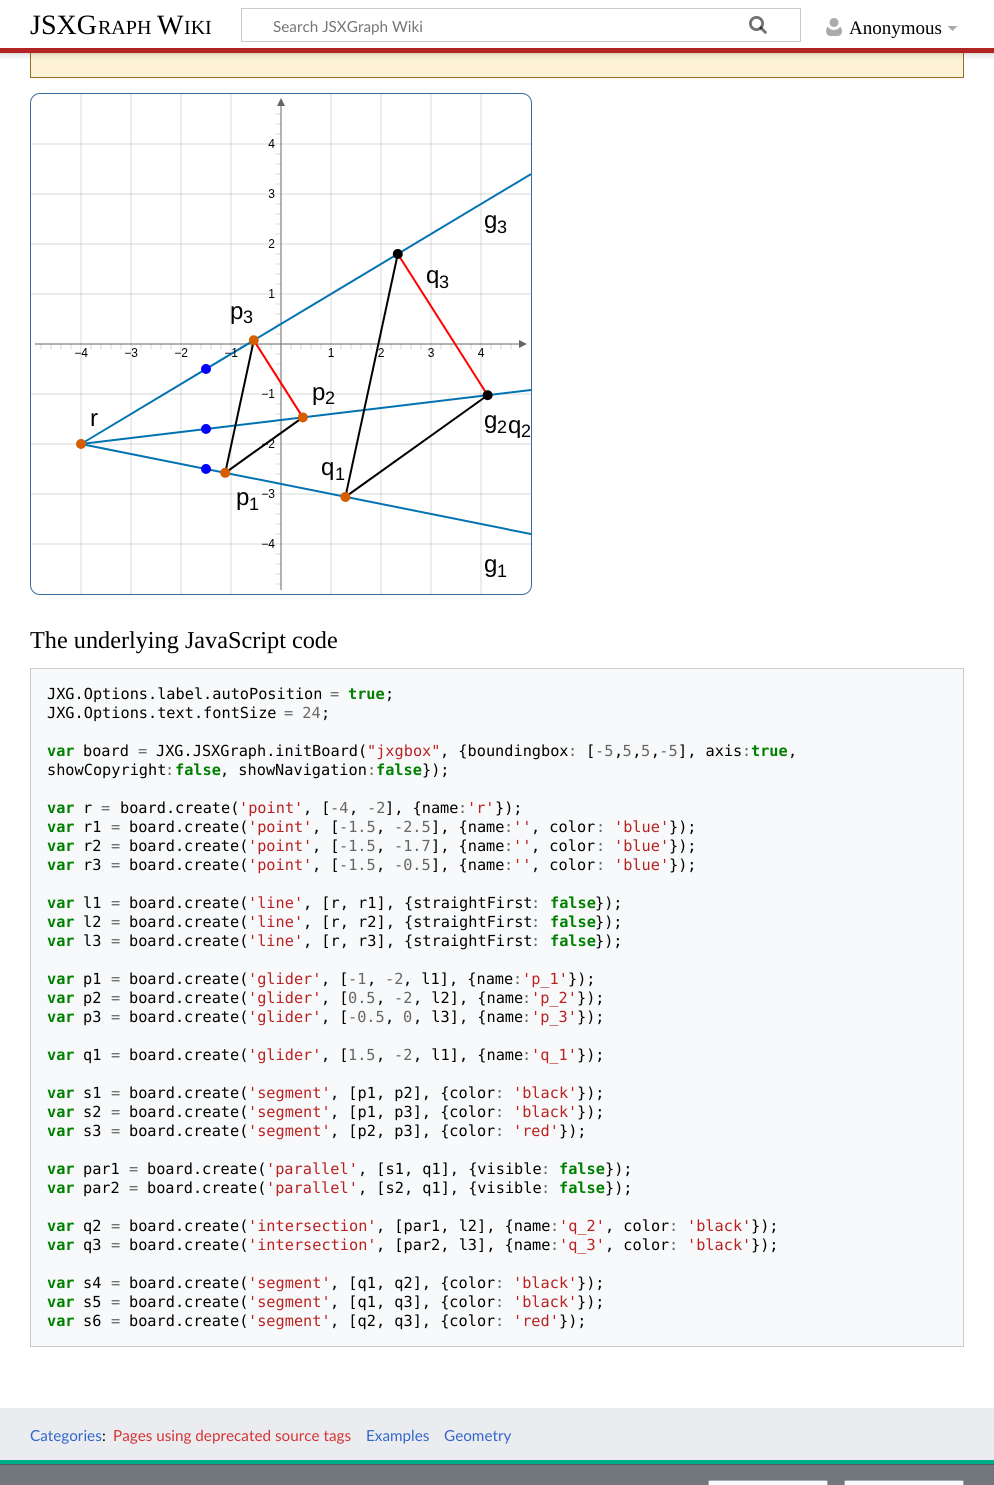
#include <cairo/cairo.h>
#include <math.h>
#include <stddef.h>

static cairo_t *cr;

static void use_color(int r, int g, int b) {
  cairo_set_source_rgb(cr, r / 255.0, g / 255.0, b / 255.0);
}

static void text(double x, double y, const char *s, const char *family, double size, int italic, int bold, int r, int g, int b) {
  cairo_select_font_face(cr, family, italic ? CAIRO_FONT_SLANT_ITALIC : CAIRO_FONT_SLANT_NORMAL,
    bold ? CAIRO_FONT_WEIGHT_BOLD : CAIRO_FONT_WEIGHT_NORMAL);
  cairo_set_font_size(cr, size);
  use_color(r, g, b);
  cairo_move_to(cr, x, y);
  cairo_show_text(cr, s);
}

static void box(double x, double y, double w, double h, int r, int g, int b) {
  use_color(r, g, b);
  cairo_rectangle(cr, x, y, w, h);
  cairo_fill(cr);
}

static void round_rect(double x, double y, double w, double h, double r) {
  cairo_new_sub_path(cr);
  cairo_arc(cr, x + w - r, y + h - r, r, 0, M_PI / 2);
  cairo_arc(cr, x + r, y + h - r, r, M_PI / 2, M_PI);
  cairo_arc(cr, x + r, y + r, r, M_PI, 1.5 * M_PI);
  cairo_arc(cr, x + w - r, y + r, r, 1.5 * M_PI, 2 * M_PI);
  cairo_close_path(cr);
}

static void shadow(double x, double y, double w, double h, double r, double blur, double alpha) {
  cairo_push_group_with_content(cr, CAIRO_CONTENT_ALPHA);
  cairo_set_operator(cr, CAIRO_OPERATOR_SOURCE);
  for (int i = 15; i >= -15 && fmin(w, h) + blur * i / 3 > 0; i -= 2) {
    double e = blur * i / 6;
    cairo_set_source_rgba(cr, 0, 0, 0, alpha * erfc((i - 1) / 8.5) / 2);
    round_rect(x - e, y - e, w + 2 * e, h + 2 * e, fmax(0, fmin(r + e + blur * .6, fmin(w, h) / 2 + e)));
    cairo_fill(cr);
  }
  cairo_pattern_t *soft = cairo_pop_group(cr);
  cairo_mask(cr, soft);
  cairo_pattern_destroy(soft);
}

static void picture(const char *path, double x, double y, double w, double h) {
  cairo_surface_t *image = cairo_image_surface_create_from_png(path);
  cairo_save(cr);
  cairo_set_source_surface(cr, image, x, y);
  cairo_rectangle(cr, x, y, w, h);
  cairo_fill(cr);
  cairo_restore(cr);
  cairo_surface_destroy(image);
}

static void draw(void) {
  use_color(114, 119, 125);
  cairo_paint(cr);
  box(0, 53, 994, 1355, 255, 255, 255);
  box(31, 53, 932, 24, 253, 242, 213);
  cairo_rectangle(cr, 30.5, 3.5, 933, 74);
  use_color(152, 112, 39);
  cairo_set_line_width(cr, 1);
  cairo_stroke(cr);
  use_color(0, 0, 0);
  shadow(0, 48, 994, 5, 0, 1, 0.2);
  shadow(-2, 49, 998, 9, 0, 1.5, 0.07);
  box(0, 0, 994, 48, 255, 255, 255);
  cairo_rectangle(cr, 241.5, 8.5, 559, 33);
  use_color(200, 204, 209);
  cairo_stroke(cr);
  picture("img_01.png", 749, 16, 18, 18);
  picture("img_02.png", 749, 16, 18, 18);
  picture("img_03.png", 826, 18, 16, 18);
  use_color(171, 171, 171);
  cairo_new_path(cr);
  cairo_move_to(cr, 957.5, 26);
  cairo_line_to(cr, 952.5, 31);
  cairo_line_to(cr, 947.5, 26);
  cairo_close_path(cr);
  cairo_fill(cr);
  box(0, 48, 994, 5, 179, 36, 36);
  box(0, 1408, 994, 52, 234, 236, 240);
  box(0, 1460, 994, 4, 0, 175, 137);
  round_rect(30.5, 93.5, 501, 501, 9.5);
  use_color(53, 106, 160);
  cairo_stroke(cr);
  picture("img_04.png", 31, 94, 500, 500);
  use_color(248, 249, 250);
  cairo_rectangle(cr, 30.5, 668.5, 933, 678);
  cairo_fill_preserve(cr);
  use_color(200, 204, 209);
  cairo_stroke(cr);
  box(0, 1464, 994, 1, 84, 89, 93);
  use_color(248, 249, 250);
  round_rect(708.5, 1480.5, 119, 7, 1.5);
  cairo_fill_preserve(cr);
  use_color(162, 169, 177);
  cairo_stroke(cr);
  use_color(248, 249, 250);
  round_rect(844.5, 1480.5, 119, 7, 1.5);
  cairo_fill_preserve(cr);
  use_color(162, 169, 177);
  cairo_stroke(cr);
  text(30, 34, "JSXG", "Liberation Serif", 28, 0, 0, 0, 0, 0);
  text(98, 34, "RAPH", "Liberation Serif", 20, 0, 0, 0, 0, 0);
  text(157, 34, "W", "Liberation Serif", 28, 0, 0, 0, 0, 0);
  text(184, 34, "IKI", "Liberation Serif", 20, 0, 0, 0, 0, 0);
  text(273, 32, "Search JSXGraph Wiki", "Lato", 15.25, 0, 0, 117, 117, 117);
  text(849, 34, "Anonymous", "Liberation Serif", 19, 0, 0, 0, 0, 0);
  text(484, 228, "g", "Liberation Sans", 24, 0, 0, 0, 0, 0);
  text(497, 233, "3", "Liberation Sans", 18, 0, 0, 0, 0, 0);
  text(426, 283, "q", "Liberation Sans", 24, 0, 0, 0, 0, 0);
  text(439, 288, "3", "Liberation Sans", 18, 0, 0, 0, 0, 0);
  text(230, 319, "p", "Liberation Sans", 24, 0, 0, 0, 0, 0);
  text(243, 323, "3", "Liberation Sans", 18, 0, 0, 0, 0, 0);
  text(312, 400, "p", "Liberation Sans", 24, 0, 0, 0, 0, 0);
  text(325, 404, "2", "Liberation Sans", 18, 0, 0, 0, 0, 0);
  text(90, 426, "r", "Liberation Sans", 24, 0, 0, 0, 0, 0);
  text(484, 428, "g", "Liberation Sans", 24, 0, 0, 0, 0, 0);
  text(497, 433, "2", "Liberation Sans", 18, 0, 0, 0, 0, 0);
  text(508, 433, "q", "Liberation Sans", 24, 0, 0, 0, 0, 0);
  text(521, 437, "2", "Liberation Sans", 18, 0, 0, 0, 0, 0);
  text(321, 475, "q", "Liberation Sans", 24, 0, 0, 0, 0, 0);
  text(335, 480, "1", "Liberation Sans", 18, 0, 0, 0, 0, 0);
  text(236, 505, "p", "Liberation Sans", 24, 0, 0, 0, 0, 0);
  text(249, 510, "1", "Liberation Sans", 18, 0, 0, 0, 0, 0);
  text(484, 572, "g", "Liberation Sans", 24, 0, 0, 0, 0, 0);
  text(497, 577, "1", "Liberation Sans", 18, 0, 0, 0, 0, 0);
  text(30, 648, "The underlying JavaScript code", "Liberation Serif", 24.25, 0, 0, 0, 0, 0);
  text(47, 699, "JXG.Options.label.autoPosition", "DejaVu Sans Mono", 15.25, 0, 0, 0, 0, 0);
  text(330, 699, "=", "DejaVu Sans Mono", 15.25, 0, 0, 102, 102, 102);
  text(348, 699, "true", "DejaVu Sans Mono", 15.25, 0, 1, 0, 128, 0);
  text(385, 699, ";", "DejaVu Sans Mono", 15.25, 0, 0, 0, 0, 0);
  text(47, 718, "JXG.Options.text.fontSize", "DejaVu Sans Mono", 15.25, 0, 0, 0, 0, 0);
  text(284, 718, "= 24", "DejaVu Sans Mono", 15.25, 0, 0, 102, 102, 102);
  text(321, 718, ";", "DejaVu Sans Mono", 15.25, 0, 0, 0, 0, 0);
  text(47, 756, "var", "DejaVu Sans Mono", 15.25, 0, 1, 0, 128, 0);
  text(83, 756, "board", "DejaVu Sans Mono", 15.25, 0, 0, 0, 0, 0);
  text(138, 756, "=", "DejaVu Sans Mono", 15.25, 0, 0, 102, 102, 102);
  text(156, 756, "JXG.JSXGraph.initBoard(", "DejaVu Sans Mono", 15.25, 0, 0, 0, 0, 0);
  text(367, 756, "\"jxgbox\"", "DejaVu Sans Mono", 15.25, 0, 0, 186, 33, 33);
  text(440, 756, ", {boundingbox", "DejaVu Sans Mono", 15.25, 0, 0, 0, 0, 0);
  text(568, 756, ":", "DejaVu Sans Mono", 15.25, 0, 0, 102, 102, 102);
  text(586, 756, "[", "DejaVu Sans Mono", 15.25, 0, 0, 0, 0, 0);
  text(595, 756, "-5 5 5 -5", "DejaVu Sans Mono", 15.25, 0, 0, 102, 102, 102);
  text(678, 756, "], axis", "DejaVu Sans Mono", 15.25, 0, 0, 0, 0, 0);
  text(742, 756, ":", "DejaVu Sans Mono", 15.25, 0, 0, 102, 102, 102);
  text(751, 756, "true", "DejaVu Sans Mono", 15.25, 0, 1, 0, 128, 0);
  text(614, 756, ", , ,", "DejaVu Sans Mono", 15.25, 0, 0, 0, 0, 0);
  text(788, 756, ",", "DejaVu Sans Mono", 15.25, 0, 0, 0, 0, 0);
  text(47, 775, "showCopyright", "DejaVu Sans Mono", 15.25, 0, 0, 0, 0, 0);
  text(165, 775, ":", "DejaVu Sans Mono", 15.25, 0, 0, 102, 102, 102);
  text(175, 775, "false", "DejaVu Sans Mono", 15.25, 0, 1, 0, 128, 0);
  text(220, 775, ", showNavigation", "DejaVu Sans Mono", 15.25, 0, 0, 0, 0, 0);
  text(367, 775, ":", "DejaVu Sans Mono", 15.25, 0, 0, 102, 102, 102);
  text(376, 775, "false", "DejaVu Sans Mono", 15.25, 0, 1, 0, 128, 0);
  text(422, 775, "});", "DejaVu Sans Mono", 15.25, 0, 0, 0, 0, 0);
  text(47, 813, "var", "DejaVu Sans Mono", 15.25, 0, 1, 0, 128, 0);
  text(83, 813, "r", "DejaVu Sans Mono", 15.25, 0, 0, 0, 0, 0);
  text(101, 813, "=", "DejaVu Sans Mono", 15.25, 0, 0, 102, 102, 102);
  text(120, 813, "board.create(", "DejaVu Sans Mono", 15.25, 0, 0, 0, 0, 0);
  text(239, 813, "'point'", "DejaVu Sans Mono", 15.25, 0, 0, 186, 33, 33);
  text(303, 813, ", [", "DejaVu Sans Mono", 15.25, 0, 0, 0, 0, 0);
  text(330, 813, "-4", "DejaVu Sans Mono", 15.25, 0, 0, 102, 102, 102);
  text(367, 813, "-2", "DejaVu Sans Mono", 15.25, 0, 0, 102, 102, 102);
  text(385, 813, "], {name", "DejaVu Sans Mono", 15.25, 0, 0, 0, 0, 0);
  text(458, 813, ":", "DejaVu Sans Mono", 15.25, 0, 0, 102, 102, 102);
  text(467, 813, "'r'", "DejaVu Sans Mono", 15.25, 0, 0, 186, 33, 33);
  text(495, 813, "});", "DejaVu Sans Mono", 15.25, 0, 0, 0, 0, 0);
  text(349, 813, ",", "DejaVu Sans Mono", 15.25, 0, 0, 0, 0, 0);
  text(47, 832, "var", "DejaVu Sans Mono", 15.25, 0, 1, 0, 128, 0);
  text(83, 832, "r1", "DejaVu Sans Mono", 15.25, 0, 0, 0, 0, 0);
  text(111, 832, "=", "DejaVu Sans Mono", 15.25, 0, 0, 102, 102, 102);
  text(129, 832, "board.create(", "DejaVu Sans Mono", 15.25, 0, 0, 0, 0, 0);
  text(248, 832, "'point'", "DejaVu Sans Mono", 15.25, 0, 0, 186, 33, 33);
  text(312, 832, ", [", "DejaVu Sans Mono", 15.25, 0, 0, 0, 0, 0);
  text(339, 832, "-1.5", "DejaVu Sans Mono", 15.25, 0, 0, 102, 102, 102);
  text(394, 832, "-2.5", "DejaVu Sans Mono", 15.25, 0, 0, 102, 102, 102);
  text(431, 832, "], {name", "DejaVu Sans Mono", 15.25, 0, 0, 0, 0, 0);
  text(504, 832, ":", "DejaVu Sans Mono", 15.25, 0, 0, 102, 102, 102);
  text(513, 832, "''", "DejaVu Sans Mono", 15.25, 0, 0, 186, 33, 33);
  text(531, 832, ", color", "DejaVu Sans Mono", 15.25, 0, 0, 0, 0, 0);
  text(596, 832, ":", "DejaVu Sans Mono", 15.25, 0, 0, 102, 102, 102);
  text(614, 832, "'blue'", "DejaVu Sans Mono", 15.25, 0, 0, 186, 33, 33);
  text(669, 832, "});", "DejaVu Sans Mono", 15.25, 0, 0, 0, 0, 0);
  text(376, 832, ",", "DejaVu Sans Mono", 15.25, 0, 0, 0, 0, 0);
  text(47, 851, "var", "DejaVu Sans Mono", 15.25, 0, 1, 0, 128, 0);
  text(83, 851, "r2", "DejaVu Sans Mono", 15.25, 0, 0, 0, 0, 0);
  text(111, 851, "=", "DejaVu Sans Mono", 15.25, 0, 0, 102, 102, 102);
  text(129, 851, "board.create(", "DejaVu Sans Mono", 15.25, 0, 0, 0, 0, 0);
  text(248, 851, "'point'", "DejaVu Sans Mono", 15.25, 0, 0, 186, 33, 33);
  text(312, 851, ", [", "DejaVu Sans Mono", 15.25, 0, 0, 0, 0, 0);
  text(339, 851, "-1.5", "DejaVu Sans Mono", 15.25, 0, 0, 102, 102, 102);
  text(394, 851, "-1.7", "DejaVu Sans Mono", 15.25, 0, 0, 102, 102, 102);
  text(431, 851, "], {name", "DejaVu Sans Mono", 15.25, 0, 0, 0, 0, 0);
  text(504, 851, ":", "DejaVu Sans Mono", 15.25, 0, 0, 102, 102, 102);
  text(513, 851, "''", "DejaVu Sans Mono", 15.25, 0, 0, 186, 33, 33);
  text(531, 851, ", color", "DejaVu Sans Mono", 15.25, 0, 0, 0, 0, 0);
  text(596, 851, ":", "DejaVu Sans Mono", 15.25, 0, 0, 102, 102, 102);
  text(614, 851, "'blue'", "DejaVu Sans Mono", 15.25, 0, 0, 186, 33, 33);
  text(669, 851, "});", "DejaVu Sans Mono", 15.25, 0, 0, 0, 0, 0);
  text(376, 851, ",", "DejaVu Sans Mono", 15.25, 0, 0, 0, 0, 0);
  text(47, 870, "var", "DejaVu Sans Mono", 15.25, 0, 1, 0, 128, 0);
  text(83, 870, "r3", "DejaVu Sans Mono", 15.25, 0, 0, 0, 0, 0);
  text(111, 870, "=", "DejaVu Sans Mono", 15.25, 0, 0, 102, 102, 102);
  text(129, 870, "board.create(", "DejaVu Sans Mono", 15.25, 0, 0, 0, 0, 0);
  text(248, 870, "'point'", "DejaVu Sans Mono", 15.25, 0, 0, 186, 33, 33);
  text(312, 870, ", [", "DejaVu Sans Mono", 15.25, 0, 0, 0, 0, 0);
  text(339, 870, "-1.5", "DejaVu Sans Mono", 15.25, 0, 0, 102, 102, 102);
  text(394, 870, "-0.5", "DejaVu Sans Mono", 15.25, 0, 0, 102, 102, 102);
  text(431, 870, "], {name", "DejaVu Sans Mono", 15.25, 0, 0, 0, 0, 0);
  text(504, 870, ":", "DejaVu Sans Mono", 15.25, 0, 0, 102, 102, 102);
  text(513, 870, "''", "DejaVu Sans Mono", 15.25, 0, 0, 186, 33, 33);
  text(531, 870, ", color", "DejaVu Sans Mono", 15.25, 0, 0, 0, 0, 0);
  text(596, 870, ":", "DejaVu Sans Mono", 15.25, 0, 0, 102, 102, 102);
  text(614, 870, "'blue'", "DejaVu Sans Mono", 15.25, 0, 0, 186, 33, 33);
  text(669, 870, "});", "DejaVu Sans Mono", 15.25, 0, 0, 0, 0, 0);
  text(376, 870, ",", "DejaVu Sans Mono", 15.25, 0, 0, 0, 0, 0);
  text(47, 908, "var", "DejaVu Sans Mono", 15.25, 0, 1, 0, 128, 0);
  text(83, 908, "l1", "DejaVu Sans Mono", 15.25, 0, 0, 0, 0, 0);
  text(111, 908, "=", "DejaVu Sans Mono", 15.25, 0, 0, 102, 102, 102);
  text(129, 908, "board.create(", "DejaVu Sans Mono", 15.25, 0, 0, 0, 0, 0);
  text(248, 908, "'line'", "DejaVu Sans Mono", 15.25, 0, 0, 186, 33, 33);
  text(303, 908, ", [r, r1], {straightFirst", "DejaVu Sans Mono", 15.25, 0, 0, 0, 0, 0);
  text(531, 908, ":", "DejaVu Sans Mono", 15.25, 0, 0, 102, 102, 102);
  text(550, 908, "false", "DejaVu Sans Mono", 15.25, 0, 1, 0, 128, 0);
  text(595, 908, "});", "DejaVu Sans Mono", 15.25, 0, 0, 0, 0, 0);
  text(47, 927, "var", "DejaVu Sans Mono", 15.25, 0, 1, 0, 128, 0);
  text(83, 927, "l2", "DejaVu Sans Mono", 15.25, 0, 0, 0, 0, 0);
  text(111, 927, "=", "DejaVu Sans Mono", 15.25, 0, 0, 102, 102, 102);
  text(129, 927, "board.create(", "DejaVu Sans Mono", 15.25, 0, 0, 0, 0, 0);
  text(248, 927, "'line'", "DejaVu Sans Mono", 15.25, 0, 0, 186, 33, 33);
  text(303, 927, ", [r, r2], {straightFirst", "DejaVu Sans Mono", 15.25, 0, 0, 0, 0, 0);
  text(531, 927, ":", "DejaVu Sans Mono", 15.25, 0, 0, 102, 102, 102);
  text(550, 927, "false", "DejaVu Sans Mono", 15.25, 0, 1, 0, 128, 0);
  text(595, 927, "});", "DejaVu Sans Mono", 15.25, 0, 0, 0, 0, 0);
  text(47, 946, "var", "DejaVu Sans Mono", 15.25, 0, 1, 0, 128, 0);
  text(83, 946, "l3", "DejaVu Sans Mono", 15.25, 0, 0, 0, 0, 0);
  text(111, 946, "=", "DejaVu Sans Mono", 15.25, 0, 0, 102, 102, 102);
  text(129, 946, "board.create(", "DejaVu Sans Mono", 15.25, 0, 0, 0, 0, 0);
  text(248, 946, "'line'", "DejaVu Sans Mono", 15.25, 0, 0, 186, 33, 33);
  text(303, 946, ", [r, r3], {straightFirst", "DejaVu Sans Mono", 15.25, 0, 0, 0, 0, 0);
  text(531, 946, ":", "DejaVu Sans Mono", 15.25, 0, 0, 102, 102, 102);
  text(550, 946, "false", "DejaVu Sans Mono", 15.25, 0, 1, 0, 128, 0);
  text(595, 946, "});", "DejaVu Sans Mono", 15.25, 0, 0, 0, 0, 0);
  text(47, 984, "var", "DejaVu Sans Mono", 15.25, 0, 1, 0, 128, 0);
  text(83, 984, "p1", "DejaVu Sans Mono", 15.25, 0, 0, 0, 0, 0);
  text(111, 984, "=", "DejaVu Sans Mono", 15.25, 0, 0, 102, 102, 102);
  text(129, 984, "board.create(", "DejaVu Sans Mono", 15.25, 0, 0, 0, 0, 0);
  text(248, 984, "'glider'", "DejaVu Sans Mono", 15.25, 0, 0, 186, 33, 33);
  text(321, 984, ", [", "DejaVu Sans Mono", 15.25, 0, 0, 0, 0, 0);
  text(348, 984, "-1", "DejaVu Sans Mono", 15.25, 0, 0, 102, 102, 102);
  text(385, 984, "-2", "DejaVu Sans Mono", 15.25, 0, 0, 102, 102, 102);
  text(403, 984, ", l1], {name", "DejaVu Sans Mono", 15.25, 0, 0, 0, 0, 0);
  text(513, 984, ":", "DejaVu Sans Mono", 15.25, 0, 0, 102, 102, 102);
  text(522, 984, "'p_1'", "DejaVu Sans Mono", 15.25, 0, 0, 186, 33, 33);
  text(568, 984, "});", "DejaVu Sans Mono", 15.25, 0, 0, 0, 0, 0);
  text(367, 984, ",", "DejaVu Sans Mono", 15.25, 0, 0, 0, 0, 0);
  text(47, 1003, "var", "DejaVu Sans Mono", 15.25, 0, 1, 0, 128, 0);
  text(83, 1003, "p2", "DejaVu Sans Mono", 15.25, 0, 0, 0, 0, 0);
  text(111, 1003, "=", "DejaVu Sans Mono", 15.25, 0, 0, 102, 102, 102);
  text(129, 1003, "board.create(", "DejaVu Sans Mono", 15.25, 0, 0, 0, 0, 0);
  text(248, 1003, "'glider'", "DejaVu Sans Mono", 15.25, 0, 0, 186, 33, 33);
  text(321, 1003, ", [", "DejaVu Sans Mono", 15.25, 0, 0, 0, 0, 0);
  text(348, 1003, "0.5", "DejaVu Sans Mono", 15.25, 0, 0, 102, 102, 102);
  text(394, 1003, "-2", "DejaVu Sans Mono", 15.25, 0, 0, 102, 102, 102);
  text(413, 1003, ", l2], {name", "DejaVu Sans Mono", 15.25, 0, 0, 0, 0, 0);
  text(522, 1003, ":", "DejaVu Sans Mono", 15.25, 0, 0, 102, 102, 102);
  text(531, 1003, "'p_2'", "DejaVu Sans Mono", 15.25, 0, 0, 186, 33, 33);
  text(577, 1003, "});", "DejaVu Sans Mono", 15.25, 0, 0, 0, 0, 0);
  text(376, 1003, ",", "DejaVu Sans Mono", 15.25, 0, 0, 0, 0, 0);
  text(47, 1022, "var", "DejaVu Sans Mono", 15.25, 0, 1, 0, 128, 0);
  text(83, 1022, "p3", "DejaVu Sans Mono", 15.25, 0, 0, 0, 0, 0);
  text(111, 1022, "=", "DejaVu Sans Mono", 15.25, 0, 0, 102, 102, 102);
  text(129, 1022, "board.create(", "DejaVu Sans Mono", 15.25, 0, 0, 0, 0, 0);
  text(248, 1022, "'glider'", "DejaVu Sans Mono", 15.25, 0, 0, 186, 33, 33);
  text(321, 1022, ", [", "DejaVu Sans Mono", 15.25, 0, 0, 0, 0, 0);
  text(348, 1022, "-0.5", "DejaVu Sans Mono", 15.25, 0, 0, 102, 102, 102);
  text(403, 1022, "0", "DejaVu Sans Mono", 15.25, 0, 0, 102, 102, 102);
  text(413, 1022, ", l3], {name", "DejaVu Sans Mono", 15.25, 0, 0, 0, 0, 0);
  text(522, 1022, ":", "DejaVu Sans Mono", 15.25, 0, 0, 102, 102, 102);
  text(531, 1022, "'p_3'", "DejaVu Sans Mono", 15.25, 0, 0, 186, 33, 33);
  text(577, 1022, "});", "DejaVu Sans Mono", 15.25, 0, 0, 0, 0, 0);
  text(385, 1022, ",", "DejaVu Sans Mono", 15.25, 0, 0, 0, 0, 0);
  text(47, 1060, "var", "DejaVu Sans Mono", 15.25, 0, 1, 0, 128, 0);
  text(83, 1060, "q1", "DejaVu Sans Mono", 15.25, 0, 0, 0, 0, 0);
  text(111, 1060, "=", "DejaVu Sans Mono", 15.25, 0, 0, 102, 102, 102);
  text(129, 1060, "board.create(", "DejaVu Sans Mono", 15.25, 0, 0, 0, 0, 0);
  text(248, 1060, "'glider'", "DejaVu Sans Mono", 15.25, 0, 0, 186, 33, 33);
  text(321, 1060, ", [", "DejaVu Sans Mono", 15.25, 0, 0, 0, 0, 0);
  text(348, 1060, "1.5", "DejaVu Sans Mono", 15.25, 0, 0, 102, 102, 102);
  text(394, 1060, "-2", "DejaVu Sans Mono", 15.25, 0, 0, 102, 102, 102);
  text(413, 1060, ", l1], {name", "DejaVu Sans Mono", 15.25, 0, 0, 0, 0, 0);
  text(522, 1060, ":", "DejaVu Sans Mono", 15.25, 0, 0, 102, 102, 102);
  text(531, 1060, "'q_1'", "DejaVu Sans Mono", 15.25, 0, 0, 186, 33, 33);
  text(577, 1060, "});", "DejaVu Sans Mono", 15.25, 0, 0, 0, 0, 0);
  text(376, 1060, ",", "DejaVu Sans Mono", 15.25, 0, 0, 0, 0, 0);
  text(47, 1098, "var", "DejaVu Sans Mono", 15.25, 0, 1, 0, 128, 0);
  text(83, 1098, "s1", "DejaVu Sans Mono", 15.25, 0, 0, 0, 0, 0);
  text(111, 1098, "=", "DejaVu Sans Mono", 15.25, 0, 0, 102, 102, 102);
  text(129, 1098, "board.create(", "DejaVu Sans Mono", 15.25, 0, 0, 0, 0, 0);
  text(248, 1098, "'segment'", "DejaVu Sans Mono", 15.25, 0, 0, 186, 33, 33);
  text(330, 1098, ", [p1, p2], {color", "DejaVu Sans Mono", 15.25, 0, 0, 0, 0, 0);
  text(495, 1098, ":", "DejaVu Sans Mono", 15.25, 0, 0, 102, 102, 102);
  text(513, 1098, "'black'", "DejaVu Sans Mono", 15.25, 0, 0, 186, 33, 33);
  text(577, 1098, "});", "DejaVu Sans Mono", 15.25, 0, 0, 0, 0, 0);
  text(47, 1117, "var", "DejaVu Sans Mono", 15.25, 0, 1, 0, 128, 0);
  text(83, 1117, "s2", "DejaVu Sans Mono", 15.25, 0, 0, 0, 0, 0);
  text(111, 1117, "=", "DejaVu Sans Mono", 15.25, 0, 0, 102, 102, 102);
  text(129, 1117, "board.create(", "DejaVu Sans Mono", 15.25, 0, 0, 0, 0, 0);
  text(248, 1117, "'segment'", "DejaVu Sans Mono", 15.25, 0, 0, 186, 33, 33);
  text(330, 1117, ", [p1, p3], {color", "DejaVu Sans Mono", 15.25, 0, 0, 0, 0, 0);
  text(495, 1117, ":", "DejaVu Sans Mono", 15.25, 0, 0, 102, 102, 102);
  text(513, 1117, "'black'", "DejaVu Sans Mono", 15.25, 0, 0, 186, 33, 33);
  text(577, 1117, "});", "DejaVu Sans Mono", 15.25, 0, 0, 0, 0, 0);
  text(47, 1136, "var", "DejaVu Sans Mono", 15.25, 0, 1, 0, 128, 0);
  text(83, 1136, "s3", "DejaVu Sans Mono", 15.25, 0, 0, 0, 0, 0);
  text(111, 1136, "=", "DejaVu Sans Mono", 15.25, 0, 0, 102, 102, 102);
  text(129, 1136, "board.create(", "DejaVu Sans Mono", 15.25, 0, 0, 0, 0, 0);
  text(248, 1136, "'segment'", "DejaVu Sans Mono", 15.25, 0, 0, 186, 33, 33);
  text(330, 1136, ", [p2, p3], {color", "DejaVu Sans Mono", 15.25, 0, 0, 0, 0, 0);
  text(495, 1136, ":", "DejaVu Sans Mono", 15.25, 0, 0, 102, 102, 102);
  text(513, 1136, "'red'", "DejaVu Sans Mono", 15.25, 0, 0, 186, 33, 33);
  text(559, 1136, "});", "DejaVu Sans Mono", 15.25, 0, 0, 0, 0, 0);
  text(47, 1174, "var", "DejaVu Sans Mono", 15.25, 0, 1, 0, 128, 0);
  text(83, 1174, "par1", "DejaVu Sans Mono", 15.25, 0, 0, 0, 0, 0);
  text(129, 1174, "=", "DejaVu Sans Mono", 15.25, 0, 0, 102, 102, 102);
  text(147, 1174, "board.create(", "DejaVu Sans Mono", 15.25, 0, 0, 0, 0, 0);
  text(266, 1174, "'parallel'", "DejaVu Sans Mono", 15.25, 0, 0, 186, 33, 33);
  text(358, 1174, ", [s1, q1], {visible", "DejaVu Sans Mono", 15.25, 0, 0, 0, 0, 0);
  text(541, 1174, ":", "DejaVu Sans Mono", 15.25, 0, 0, 102, 102, 102);
  text(559, 1174, "false", "DejaVu Sans Mono", 15.25, 0, 1, 0, 128, 0);
  text(605, 1174, "});", "DejaVu Sans Mono", 15.25, 0, 0, 0, 0, 0);
  text(47, 1193, "var", "DejaVu Sans Mono", 15.25, 0, 1, 0, 128, 0);
  text(83, 1193, "par2", "DejaVu Sans Mono", 15.25, 0, 0, 0, 0, 0);
  text(129, 1193, "=", "DejaVu Sans Mono", 15.25, 0, 0, 102, 102, 102);
  text(147, 1193, "board.create(", "DejaVu Sans Mono", 15.25, 0, 0, 0, 0, 0);
  text(266, 1193, "'parallel'", "DejaVu Sans Mono", 15.25, 0, 0, 186, 33, 33);
  text(358, 1193, ", [s2, q1], {visible", "DejaVu Sans Mono", 15.25, 0, 0, 0, 0, 0);
  text(541, 1193, ":", "DejaVu Sans Mono", 15.25, 0, 0, 102, 102, 102);
  text(559, 1193, "false", "DejaVu Sans Mono", 15.25, 0, 1, 0, 128, 0);
  text(605, 1193, "});", "DejaVu Sans Mono", 15.25, 0, 0, 0, 0, 0);
  text(47, 1231, "var", "DejaVu Sans Mono", 15.25, 0, 1, 0, 128, 0);
  text(83, 1231, "q2", "DejaVu Sans Mono", 15.25, 0, 0, 0, 0, 0);
  text(111, 1231, "=", "DejaVu Sans Mono", 15.25, 0, 0, 102, 102, 102);
  text(129, 1231, "board.create(", "DejaVu Sans Mono", 15.25, 0, 0, 0, 0, 0);
  text(248, 1231, "'intersection'", "DejaVu Sans Mono", 15.25, 0, 0, 186, 33, 33);
  text(376, 1231, ", [par1, l2], {name", "DejaVu Sans Mono", 15.25, 0, 0, 0, 0, 0);
  text(550, 1231, ":", "DejaVu Sans Mono", 15.25, 0, 0, 102, 102, 102);
  text(559, 1231, "'q_2'", "DejaVu Sans Mono", 15.25, 0, 0, 186, 33, 33);
  text(605, 1231, ", color", "DejaVu Sans Mono", 15.25, 0, 0, 0, 0, 0);
  text(669, 1231, ":", "DejaVu Sans Mono", 15.25, 0, 0, 102, 102, 102);
  text(687, 1231, "'black'", "DejaVu Sans Mono", 15.25, 0, 0, 186, 33, 33);
  text(751, 1231, "});", "DejaVu Sans Mono", 15.25, 0, 0, 0, 0, 0);
  text(47, 1250, "var", "DejaVu Sans Mono", 15.25, 0, 1, 0, 128, 0);
  text(83, 1250, "q3", "DejaVu Sans Mono", 15.25, 0, 0, 0, 0, 0);
  text(111, 1250, "=", "DejaVu Sans Mono", 15.25, 0, 0, 102, 102, 102);
  text(129, 1250, "board.create(", "DejaVu Sans Mono", 15.25, 0, 0, 0, 0, 0);
  text(248, 1250, "'intersection'", "DejaVu Sans Mono", 15.25, 0, 0, 186, 33, 33);
  text(376, 1250, ", [par2, l3], {name", "DejaVu Sans Mono", 15.25, 0, 0, 0, 0, 0);
  text(550, 1250, ":", "DejaVu Sans Mono", 15.25, 0, 0, 102, 102, 102);
  text(559, 1250, "'q_3'", "DejaVu Sans Mono", 15.25, 0, 0, 186, 33, 33);
  text(605, 1250, ", color", "DejaVu Sans Mono", 15.25, 0, 0, 0, 0, 0);
  text(669, 1250, ":", "DejaVu Sans Mono", 15.25, 0, 0, 102, 102, 102);
  text(687, 1250, "'black'", "DejaVu Sans Mono", 15.25, 0, 0, 186, 33, 33);
  text(751, 1250, "});", "DejaVu Sans Mono", 15.25, 0, 0, 0, 0, 0);
  text(47, 1288, "var", "DejaVu Sans Mono", 15.25, 0, 1, 0, 128, 0);
  text(83, 1288, "s4", "DejaVu Sans Mono", 15.25, 0, 0, 0, 0, 0);
  text(111, 1288, "=", "DejaVu Sans Mono", 15.25, 0, 0, 102, 102, 102);
  text(129, 1288, "board.create(", "DejaVu Sans Mono", 15.25, 0, 0, 0, 0, 0);
  text(248, 1288, "'segment'", "DejaVu Sans Mono", 15.25, 0, 0, 186, 33, 33);
  text(330, 1288, ", [q1, q2], {color", "DejaVu Sans Mono", 15.25, 0, 0, 0, 0, 0);
  text(495, 1288, ":", "DejaVu Sans Mono", 15.25, 0, 0, 102, 102, 102);
  text(513, 1288, "'black'", "DejaVu Sans Mono", 15.25, 0, 0, 186, 33, 33);
  text(577, 1288, "});", "DejaVu Sans Mono", 15.25, 0, 0, 0, 0, 0);
  text(47, 1307, "var", "DejaVu Sans Mono", 15.25, 0, 1, 0, 128, 0);
  text(83, 1307, "s5", "DejaVu Sans Mono", 15.25, 0, 0, 0, 0, 0);
  text(111, 1307, "=", "DejaVu Sans Mono", 15.25, 0, 0, 102, 102, 102);
  text(129, 1307, "board.create(", "DejaVu Sans Mono", 15.25, 0, 0, 0, 0, 0);
  text(248, 1307, "'segment'", "DejaVu Sans Mono", 15.25, 0, 0, 186, 33, 33);
  text(330, 1307, ", [q1, q3], {color", "DejaVu Sans Mono", 15.25, 0, 0, 0, 0, 0);
  text(495, 1307, ":", "DejaVu Sans Mono", 15.25, 0, 0, 102, 102, 102);
  text(513, 1307, "'black'", "DejaVu Sans Mono", 15.25, 0, 0, 186, 33, 33);
  text(577, 1307, "});", "DejaVu Sans Mono", 15.25, 0, 0, 0, 0, 0);
  text(47, 1326, "var", "DejaVu Sans Mono", 15.25, 0, 1, 0, 128, 0);
  text(83, 1326, "s6", "DejaVu Sans Mono", 15.25, 0, 0, 0, 0, 0);
  text(111, 1326, "=", "DejaVu Sans Mono", 15.25, 0, 0, 102, 102, 102);
  text(129, 1326, "board.create(", "DejaVu Sans Mono", 15.25, 0, 0, 0, 0, 0);
  text(248, 1326, "'segment'", "DejaVu Sans Mono", 15.25, 0, 0, 186, 33, 33);
  text(330, 1326, ", [q2, q3], {color", "DejaVu Sans Mono", 15.25, 0, 0, 0, 0, 0);
  text(495, 1326, ":", "DejaVu Sans Mono", 15.25, 0, 0, 102, 102, 102);
  text(513, 1326, "'red'", "DejaVu Sans Mono", 15.25, 0, 0, 186, 33, 33);
  text(559, 1326, "});", "DejaVu Sans Mono", 15.25, 0, 0, 0, 0, 0);
  text(30, 1441, "Categories", "Lato", 15.25, 0, 0, 51, 102, 204);
  text(102, 1441, ":", "Lato", 15.25, 0, 0, 0, 0, 0);
  text(113, 1441, "Pages using deprecated source tags", "Lato", 15.25, 0, 0, 215, 51, 51);
  text(366, 1441, "Examples", "Lato", 15.25, 0, 0, 51, 102, 204);
  text(444, 1441, "Geometry", "Lato", 15.25, 0, 0, 51, 102, 204);
}

int main(void) {
  cairo_surface_t *surface = cairo_image_surface_create(CAIRO_FORMAT_RGB24, 994, 1485);
  cr = cairo_create(surface);
  cairo_font_options_t *options = cairo_font_options_create();
  cairo_font_options_set_hint_metrics(options, CAIRO_HINT_METRICS_OFF);
  cairo_font_options_set_hint_style(options, CAIRO_HINT_STYLE_NONE);
  cairo_set_font_options(cr, options);
  cairo_set_miter_limit(cr, 4);
  draw();
  cairo_surface_write_to_png(surface, "out.png");
  cairo_font_options_destroy(options);
  cairo_destroy(cr);
  cairo_surface_destroy(surface);
  return 0;
}
